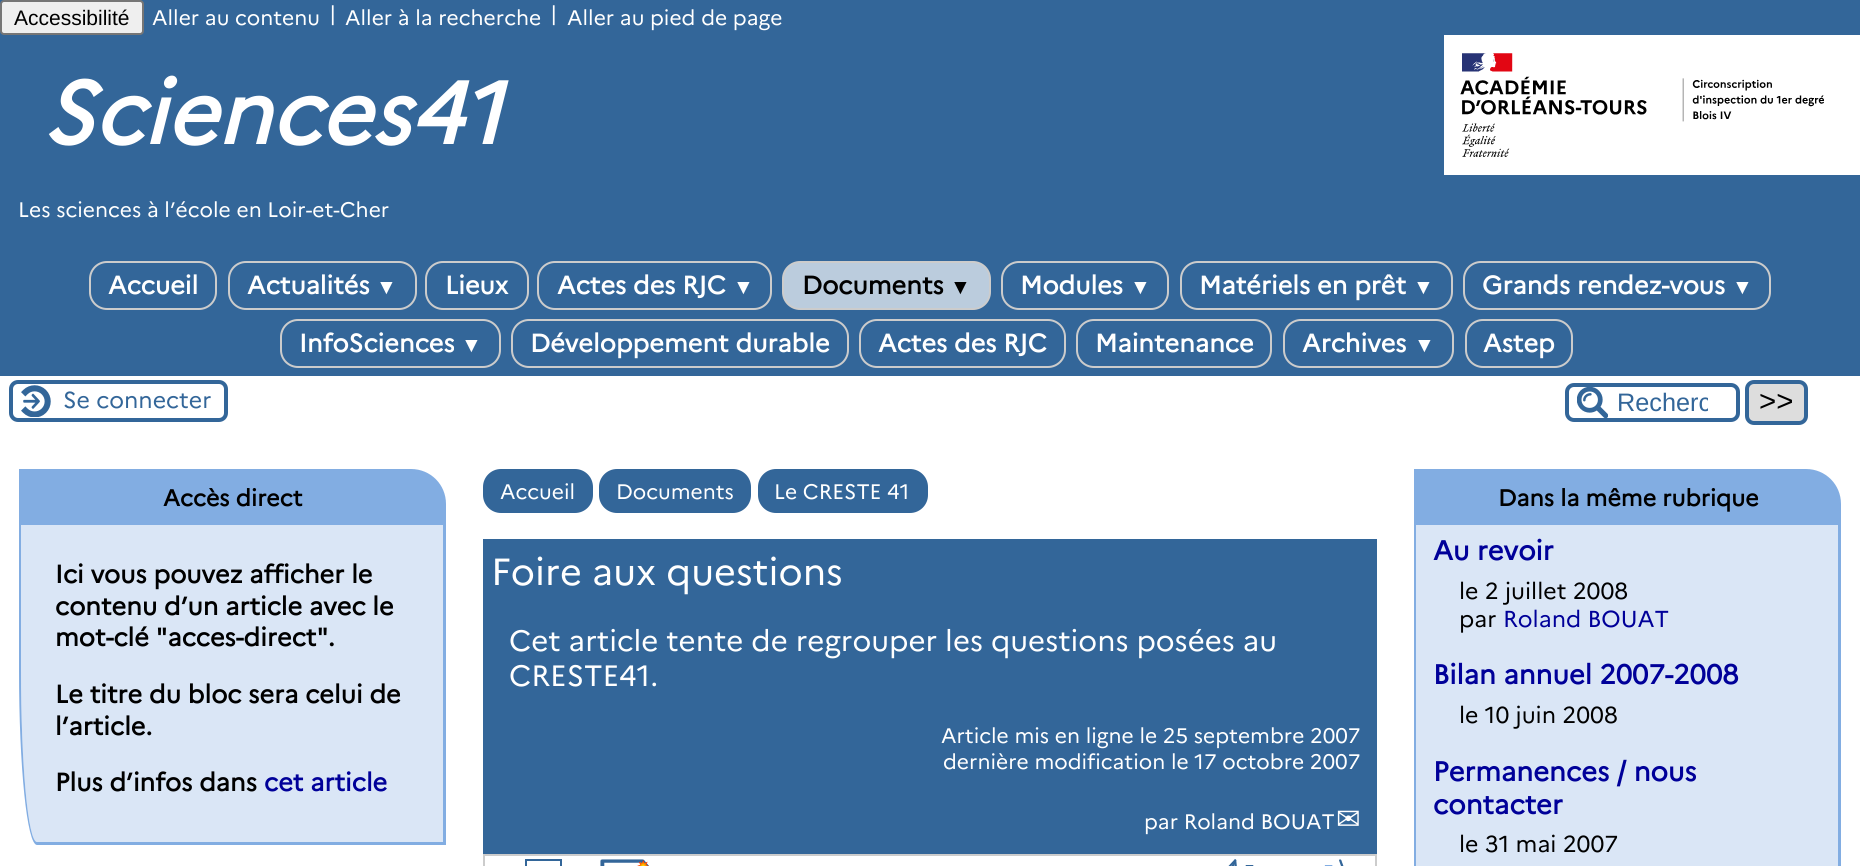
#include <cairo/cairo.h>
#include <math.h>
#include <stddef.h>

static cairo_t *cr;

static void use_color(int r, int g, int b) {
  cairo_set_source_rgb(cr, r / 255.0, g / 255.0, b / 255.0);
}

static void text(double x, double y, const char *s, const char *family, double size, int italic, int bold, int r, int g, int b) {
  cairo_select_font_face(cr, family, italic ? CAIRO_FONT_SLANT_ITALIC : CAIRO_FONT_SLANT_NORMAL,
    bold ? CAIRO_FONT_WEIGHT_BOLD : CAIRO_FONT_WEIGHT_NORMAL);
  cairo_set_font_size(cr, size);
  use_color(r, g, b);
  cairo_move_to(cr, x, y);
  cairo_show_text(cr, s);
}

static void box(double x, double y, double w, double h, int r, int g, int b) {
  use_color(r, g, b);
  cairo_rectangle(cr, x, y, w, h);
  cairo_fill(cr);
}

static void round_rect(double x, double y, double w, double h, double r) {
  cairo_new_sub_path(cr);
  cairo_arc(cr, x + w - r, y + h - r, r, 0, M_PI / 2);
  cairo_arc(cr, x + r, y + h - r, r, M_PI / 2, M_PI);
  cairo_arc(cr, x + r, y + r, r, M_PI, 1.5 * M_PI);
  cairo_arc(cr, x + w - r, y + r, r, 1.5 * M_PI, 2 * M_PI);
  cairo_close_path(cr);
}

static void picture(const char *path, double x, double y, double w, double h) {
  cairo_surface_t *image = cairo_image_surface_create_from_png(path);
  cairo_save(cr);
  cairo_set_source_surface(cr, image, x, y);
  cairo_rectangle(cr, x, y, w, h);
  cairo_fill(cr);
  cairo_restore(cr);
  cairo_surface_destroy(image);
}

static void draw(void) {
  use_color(255, 255, 255);
  cairo_paint(cr);
  box(0, 0, 1860, 376, 51, 102, 153);
  use_color(239, 239, 239);
  round_rect(1, 1, 142, 33, 3);
  cairo_fill_preserve(cr);
  use_color(118, 118, 118);
  cairo_stroke(cr);
  picture("img_01.png", 1444, 35, 416, 140);
  round_rect(90, 262, 126, 47, 17);
  use_color(204, 204, 204);
  cairo_stroke(cr);
  round_rect(229, 262, 187, 47, 17);
  cairo_stroke(cr);
  round_rect(426, 262, 102, 47, 17);
  cairo_stroke(cr);
  round_rect(538, 262, 233, 47, 17);
  cairo_stroke(cr);
  use_color(187, 204, 221);
  round_rect(783, 262, 207, 47, 17);
  cairo_fill_preserve(cr);
  use_color(204, 204, 204);
  cairo_stroke(cr);
  round_rect(1002, 262, 166, 47, 17);
  cairo_stroke(cr);
  round_rect(1181, 262, 271, 47, 17);
  cairo_stroke(cr);
  round_rect(1464, 262, 306, 47, 17);
  cairo_stroke(cr);
  round_rect(281, 320, 219, 47, 17);
  cairo_stroke(cr);
  round_rect(512, 320, 336, 47, 17);
  cairo_stroke(cr);
  round_rect(860, 320, 205, 47, 17);
  cairo_stroke(cr);
  round_rect(1077, 320, 194, 47, 17);
  cairo_stroke(cr);
  round_rect(1284, 320, 169, 47, 17);
  cairo_stroke(cr);
  round_rect(1466, 320, 106, 47, 17);
  cairo_stroke(cr);
  picture("img_02.png", 21, 385, 30, 32);
  round_rect(11, 382, 215, 38, 7);
  use_color(51, 102, 153);
  cairo_set_line_width(cr, 4);
  cairo_stroke(cr);
  picture("img_03.png", 1577, 387, 31, 31);
  round_rect(1567, 385, 171, 35, 7);
  cairo_stroke(cr);
  use_color(221, 221, 221);
  round_rect(1747, 382, 59, 41, 7);
  cairo_fill_preserve(cr);
  use_color(51, 102, 153);
  cairo_stroke(cr);
  use_color(130, 173, 226);
  cairo_new_path(cr);
  cairo_move_to(cr, 19, 469);
  cairo_line_to(cr, 411, 469);
  cairo_curve_to(cr, 430.5, 469, 446, 484.5, 446, 504);
  cairo_line_to(cr, 446, 525);
  cairo_line_to(cr, 19, 525);
  cairo_close_path(cr);
  cairo_fill(cr);
  use_color(218, 230, 246);
  cairo_new_path(cr);
  cairo_move_to(cr, 21, 525);
  cairo_line_to(cr, 443, 525);
  cairo_line_to(cr, 443, 842);
  cairo_line_to(cr, 37, 842);
  cairo_curve_to(cr, 28, 842, 21, 765, 21, 670);
  cairo_close_path(cr);
  cairo_fill(cr);
  use_color(130, 173, 226);
  cairo_set_fill_rule(cr, CAIRO_FILL_RULE_EVEN_ODD);
  cairo_new_path(cr);
  cairo_move_to(cr, 19, 525);
  cairo_line_to(cr, 446, 525);
  cairo_line_to(cr, 446, 845);
  cairo_line_to(cr, 37, 845);
  cairo_curve_to(cr, 27, 845, 19, 767, 19, 670);
  cairo_close_path(cr);
  cairo_move_to(cr, 21, 525);
  cairo_line_to(cr, 443, 525);
  cairo_line_to(cr, 443, 842);
  cairo_line_to(cr, 37, 842);
  cairo_curve_to(cr, 28, 842, 21, 765, 21, 670);
  cairo_close_path(cr);
  cairo_fill(cr);
  use_color(51, 102, 153);
  round_rect(483, 469, 110, 44, 18);
  cairo_fill(cr);
  round_rect(599, 469, 152, 44, 18);
  cairo_fill(cr);
  round_rect(758, 469, 170, 44, 18);
  cairo_fill(cr);
  box(483, 539, 894, 315, 51, 102, 153);
  cairo_rectangle(cr, 484, 855, 892, 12);
  use_color(204, 204, 204);
  cairo_set_line_width(cr, 2);
  cairo_stroke(cr);
  picture("img_04.png", 525, 859, 37, 7);
  picture("img_05.png", 600, 859, 49, 7);
  picture("img_06.png", 1228, 859, 26, 7);
  picture("img_07.png", 1324, 859, 20, 7);
  use_color(130, 173, 226);
  cairo_new_path(cr);
  cairo_move_to(cr, 1414, 469);
  cairo_line_to(cr, 1806, 469);
  cairo_curve_to(cr, 1825.5, 469, 1841, 484.5, 1841, 504);
  cairo_line_to(cr, 1841, 525);
  cairo_line_to(cr, 1414, 525);
  cairo_close_path(cr);
  cairo_fill(cr);
  use_color(218, 230, 246);
  cairo_set_fill_rule(cr, CAIRO_FILL_RULE_WINDING);
  cairo_new_path(cr);
  cairo_move_to(cr, 1416, 525);
  cairo_line_to(cr, 1838, 525);
  cairo_line_to(cr, 1838, 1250);
  cairo_line_to(cr, 1432, 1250);
  cairo_curve_to(cr, 1423, 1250, 1416, 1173, 1416, 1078);
  cairo_close_path(cr);
  cairo_fill(cr);
  use_color(130, 173, 226);
  cairo_set_fill_rule(cr, CAIRO_FILL_RULE_EVEN_ODD);
  cairo_new_path(cr);
  cairo_move_to(cr, 1414, 525);
  cairo_line_to(cr, 1841, 525);
  cairo_line_to(cr, 1841, 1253);
  cairo_line_to(cr, 1432, 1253);
  cairo_curve_to(cr, 1422, 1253, 1414, 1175, 1414, 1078);
  cairo_close_path(cr);
  cairo_move_to(cr, 1416, 525);
  cairo_line_to(cr, 1838, 525);
  cairo_line_to(cr, 1838, 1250);
  cairo_line_to(cr, 1432, 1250);
  cairo_curve_to(cr, 1423, 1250, 1416, 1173, 1416, 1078);
  cairo_close_path(cr);
  cairo_fill(cr);
  text(14, 25, "Accessibilité", "Liberation Sans", 21, 0, 0, 0, 0, 0);
  text(152, 25, "Aller au contenu", "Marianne", 21, 0, 0, 255, 255, 255);
  text(329, 21, "|", "Marianne", 21, 0, 0, 255, 255, 255);
  text(345, 25, "Aller à la recherche", "Marianne", 21, 0, 0, 255, 255, 255);
  text(550, 21, "|", "Marianne", 21, 0, 0, 255, 255, 255);
  text(567, 25, "Aller au pied de page", "Marianne", 21, 0, 0, 255, 255, 255);
  text(42, 144, "Sciences41", "Marianne", 87.5, 1, 1, 255, 255, 255);
  text(18, 217, "Les sciences à l’école en Loir-et-Cher", "Marianne", 21, 0, 0, 255, 255, 255);
  text(108, 294, "Accueil", "Marianne", 25.25, 0, 1, 255, 255, 255);
  text(247, 294, "Actualités", "Marianne", 25.25, 0, 1, 255, 255, 255);
  text(376, 294, "▼", "Liberation Serif", 21, 0, 1, 255, 255, 255);
  text(445, 294, "Lieux", "Marianne", 25.25, 0, 1, 255, 255, 255);
  text(557, 294, "Actes des RJC", "Marianne", 25.25, 0, 1, 255, 255, 255);
  text(733, 294, "▼", "Liberation Serif", 21, 0, 1, 255, 255, 255);
  text(802, 294, "Documents", "Marianne", 25.25, 0, 1, 0, 0, 0);
  text(950, 294, "▼", "Liberation Serif", 21, 0, 1, 0, 0, 0);
  text(1020, 294, "Modules", "Marianne", 25.25, 0, 1, 255, 255, 255);
  text(1130, 294, "▼", "Liberation Serif", 21, 0, 1, 255, 255, 255);
  text(1199, 294, "Matériels en prêt", "Marianne", 25.25, 0, 1, 255, 255, 255);
  text(1413, 294, "▼", "Liberation Serif", 21, 0, 1, 255, 255, 255);
  text(1482, 294, "Grands rendez-vous", "Marianne", 25.25, 0, 1, 255, 255, 255);
  text(1732, 294, "▼", "Liberation Serif", 21, 0, 1, 255, 255, 255);
  text(299, 352, "InfoSciences", "Marianne", 25.25, 0, 1, 255, 255, 255);
  text(461, 352, "▼", "Liberation Serif", 21, 0, 1, 255, 255, 255);
  text(530, 352, "Développement durable", "Marianne", 25.25, 0, 1, 255, 255, 255);
  text(878, 352, "Actes des RJC", "Marianne", 25.25, 0, 1, 255, 255, 255);
  text(1095, 352, "Maintenance", "Marianne", 25.25, 0, 1, 255, 255, 255);
  text(1302, 352, "Archives", "Marianne", 25.25, 0, 1, 255, 255, 255);
  text(1414, 352, "▼", "Liberation Serif", 21, 0, 1, 255, 255, 255);
  text(1483, 352, "Astep", "Marianne", 25.25, 0, 1, 255, 255, 255);
  text(63, 408, "Se connecter", "Marianne", 23.1, 0, 0, 51, 102, 153);
  cairo_save(cr);
  cairo_set_fill_rule(cr, CAIRO_FILL_RULE_WINDING);
  cairo_rectangle(cr, 1617, 389, 91, 28);
  cairo_clip(cr);
  text(1617, 411, "Recherc", "Liberation Sans", 25.25, 0, 0, 51, 102, 153);
  cairo_restore(cr);
  text(1759, 411, ">>", "Liberation Sans", 29.4, 0, 0, 0, 0, 0);
  text(163, 506, "Accès direct", "Marianne", 23.1, 0, 1, 0, 0, 0);
  text(55, 583, "Ici vous pouvez afficher le", "Marianne", 25.25, 0, 1, 0, 0, 0);
  text(55, 615, "contenu d’un article avec le", "Marianne", 25.25, 0, 1, 0, 0, 0);
  text(55, 646, "mot-clé \"acces-direct\".", "Marianne", 25.25, 0, 1, 0, 0, 0);
  text(55, 703, "Le titre du bloc sera celui de", "Marianne", 25.25, 0, 1, 0, 0, 0);
  text(55, 735, "l’article.", "Marianne", 25.25, 0, 1, 0, 0, 0);
  text(55, 791, "Plus d’infos dans", "Marianne", 25.25, 0, 1, 0, 0, 0);
  text(264, 791, "cet article", "Marianne", 25.25, 0, 1, 0, 0, 153);
  text(500, 499, "Accueil", "Marianne", 21, 0, 0, 255, 255, 255);
  text(616, 499, "Documents", "Marianne", 21, 0, 0, 255, 255, 255);
  text(774, 499, "Le CRESTE 41", "Marianne", 21, 0, 0, 255, 255, 255);
  text(491, 585, "Foire aux questions", "Marianne", 37.75, 0, 0, 255, 255, 255);
  text(509, 651, "Cet article tente de regrouper les questions posées au", "Marianne", 29.4, 0, 0, 255, 255, 255);
  text(509, 686, "CRESTE41.", "Marianne", 29.4, 0, 0, 255, 255, 255);
  text(941, 743, "Article mis en ligne le 25 septembre 2007", "Marianne", 21, 0, 0, 255, 255, 255);
  text(943, 769, "dernière modification le 17 octobre 2007", "Marianne", 21, 0, 0, 255, 255, 255);
  text(1144, 829, "par Roland BOUAT", "Marianne", 21, 0, 0, 255, 255, 255);
  text(1336, 829, "✉", "DejaVu Sans", 29.4, 0, 0, 255, 255, 255);
  text(1498, 506, "Dans la même rubrique", "Marianne", 23.1, 0, 1, 0, 0, 0);
  text(1433, 560, "Au revoir", "Marianne", 27.25, 0, 1, 0, 0, 153);
  text(1459, 599, "le 2 juillet 2008", "Marianne", 23.1, 0, 0, 0, 0, 0);
  text(1459, 627, "par", "Marianne", 23.1, 0, 0, 0, 0, 0);
  text(1503, 627, "Roland BOUAT", "Marianne", 23.1, 0, 0, 0, 0, 153);
  text(1433, 684, "Bilan annuel 2007-2008", "Marianne", 27.25, 0, 1, 0, 0, 153);
  text(1459, 723, "le 10 juin 2008", "Marianne", 23.1, 0, 0, 0, 0, 0);
  text(1433, 781, "Permanences / nous", "Marianne", 27.25, 0, 1, 0, 0, 153);
  text(1433, 814, "contacter", "Marianne", 27.25, 0, 1, 0, 0, 153);
  text(1459, 852, "le 31 mai 2007", "Marianne", 23.1, 0, 0, 0, 0, 0);
}

int main(void) {
  cairo_surface_t *surface = cairo_image_surface_create(CAIRO_FORMAT_RGB24, 1860, 866);
  cr = cairo_create(surface);
  cairo_font_options_t *options = cairo_font_options_create();
  cairo_font_options_set_hint_metrics(options, CAIRO_HINT_METRICS_OFF);
  cairo_font_options_set_hint_style(options, CAIRO_HINT_STYLE_NONE);
  cairo_set_font_options(cr, options);
  cairo_set_miter_limit(cr, 4);
  draw();
  cairo_surface_write_to_png(surface, "out.png");
  cairo_font_options_destroy(options);
  cairo_destroy(cr);
  cairo_surface_destroy(surface);
  return 0;
}
